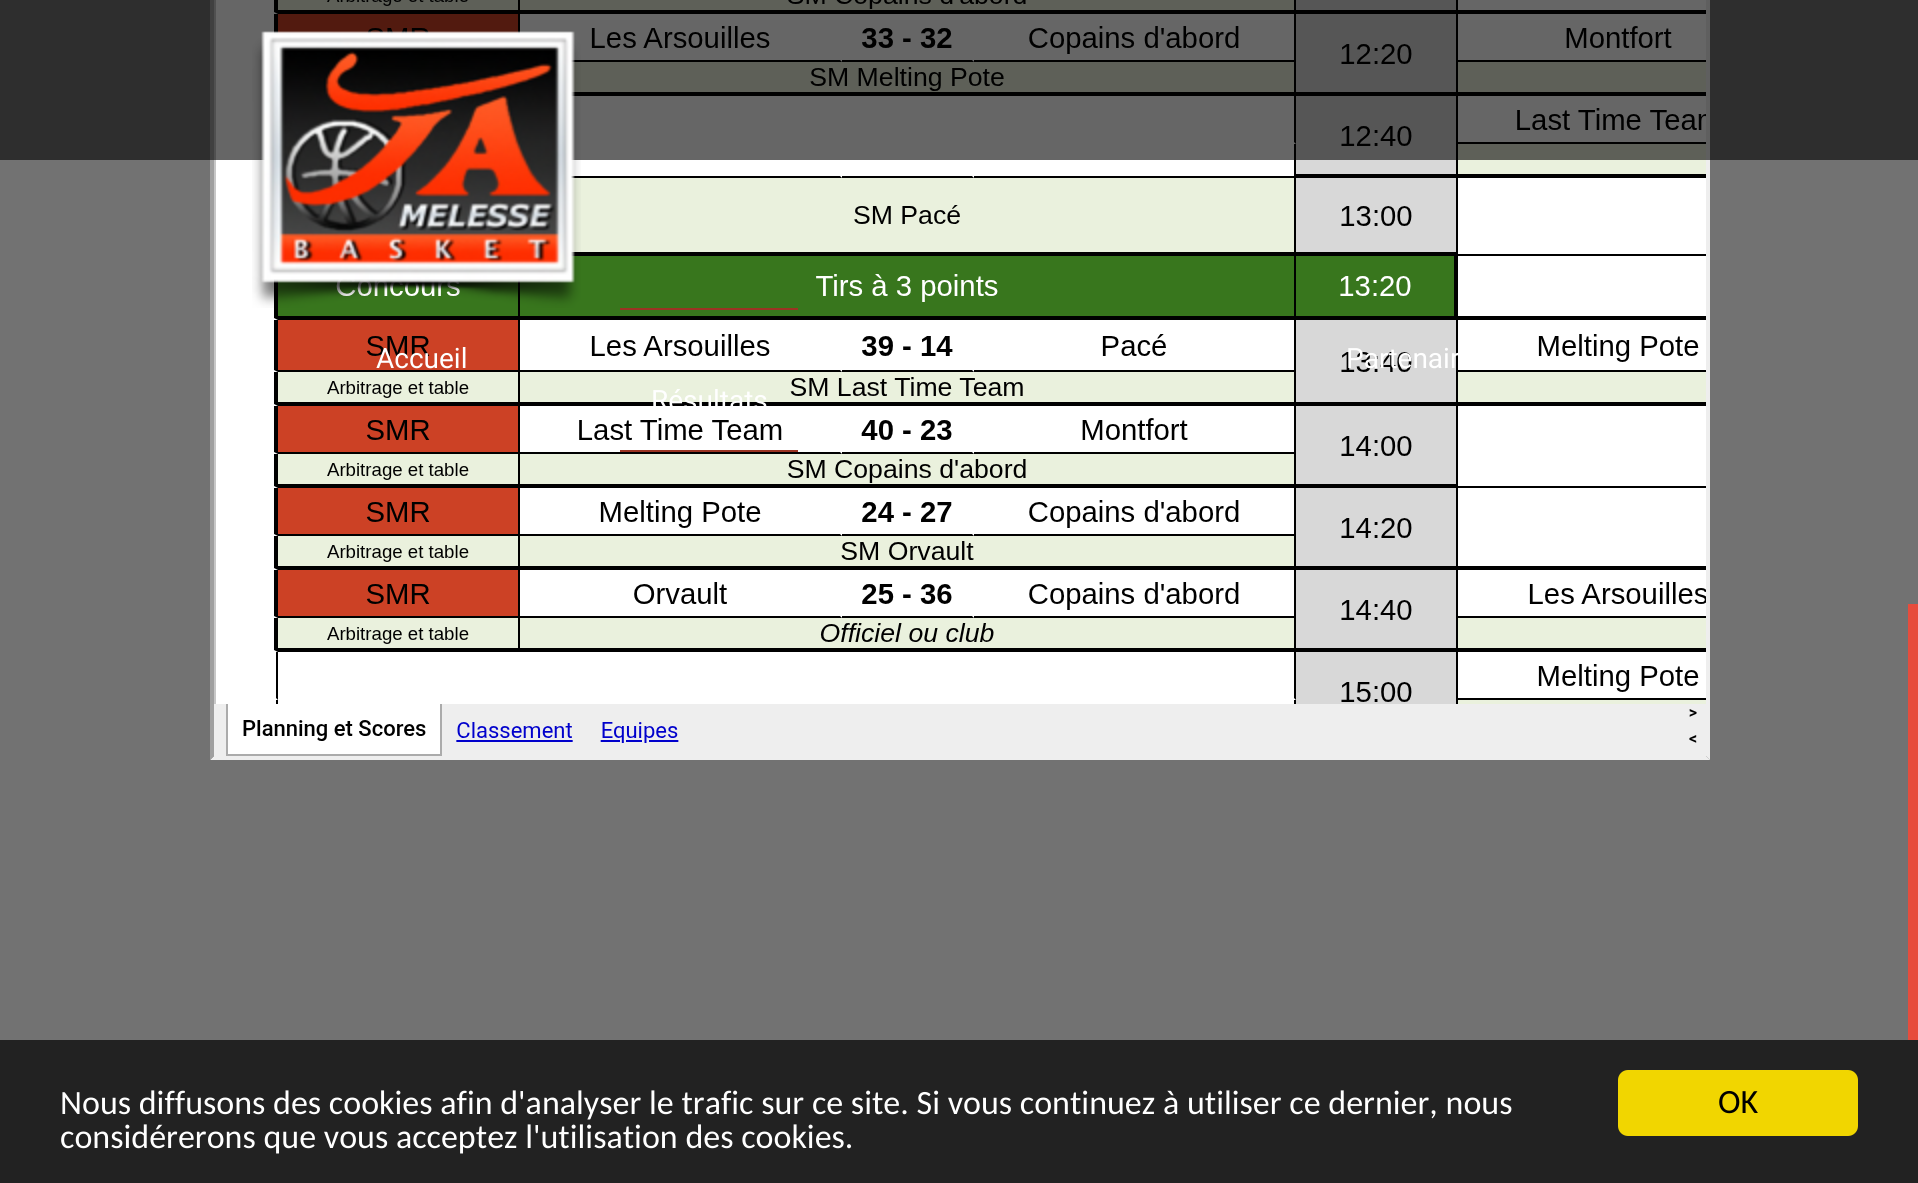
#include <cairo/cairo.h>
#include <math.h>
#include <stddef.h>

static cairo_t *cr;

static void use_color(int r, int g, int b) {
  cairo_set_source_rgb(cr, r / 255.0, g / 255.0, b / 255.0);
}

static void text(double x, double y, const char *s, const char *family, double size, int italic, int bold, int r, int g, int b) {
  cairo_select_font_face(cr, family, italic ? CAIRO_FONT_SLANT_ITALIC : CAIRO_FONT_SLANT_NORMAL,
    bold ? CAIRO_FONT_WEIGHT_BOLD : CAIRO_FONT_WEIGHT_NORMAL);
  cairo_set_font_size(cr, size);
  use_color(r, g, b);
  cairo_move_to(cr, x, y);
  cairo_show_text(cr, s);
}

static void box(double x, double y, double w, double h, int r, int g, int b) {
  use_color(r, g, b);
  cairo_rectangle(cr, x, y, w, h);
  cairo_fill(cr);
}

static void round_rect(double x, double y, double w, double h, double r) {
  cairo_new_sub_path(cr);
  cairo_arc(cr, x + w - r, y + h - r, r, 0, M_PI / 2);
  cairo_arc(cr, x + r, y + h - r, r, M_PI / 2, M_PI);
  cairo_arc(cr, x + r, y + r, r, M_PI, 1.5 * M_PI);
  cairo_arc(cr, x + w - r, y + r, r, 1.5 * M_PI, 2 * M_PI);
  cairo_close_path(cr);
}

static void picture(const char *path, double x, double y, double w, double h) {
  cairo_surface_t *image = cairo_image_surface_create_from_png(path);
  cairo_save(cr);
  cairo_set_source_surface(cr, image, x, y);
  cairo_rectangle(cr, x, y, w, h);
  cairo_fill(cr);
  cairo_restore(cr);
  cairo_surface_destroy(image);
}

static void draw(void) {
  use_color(114, 114, 114);
  cairo_paint(cr);
  use_color(238, 238, 238);
  cairo_new_path(cr);
  cairo_move_to(cr, 1710, -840);
  cairo_line_to(cr, 1710, 760);
  cairo_line_to(cr, 1706, 756);
  cairo_line_to(cr, 1706, -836);
  cairo_close_path(cr);
  cairo_fill(cr);
  cairo_new_path(cr);
  cairo_move_to(cr, 1710, 760);
  cairo_line_to(cr, 210, 760);
  cairo_line_to(cr, 214, 756);
  cairo_line_to(cr, 1706, 756);
  cairo_close_path(cr);
  cairo_fill(cr);
  use_color(159, 159, 159);
  cairo_new_path(cr);
  cairo_move_to(cr, 210, 760);
  cairo_line_to(cr, 210, -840);
  cairo_line_to(cr, 214, -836);
  cairo_line_to(cr, 214, 756);
  cairo_close_path(cr);
  cairo_fill(cr);
  picture("img_01.png", 214, 0, 1492, 756);
  cairo_set_source_rgba(cr, 0, 0, 0, 0.6);
  cairo_rectangle(cr, 0, 0, 1918, 160);
  cairo_fill(cr);
  picture("img_02.png", 252, 31, 329, 277);
  box(620, 308, 178, 2, 155, 52, 35);
  box(620, 450, 178, 2, 155, 52, 35);
  box(1908, 604, 10, 436, 231, 76, 60);
  box(0, 1040, 1918, 143, 34, 34, 34);
  use_color(241, 214, 0);
  round_rect(1618, 1070, 240, 66, 10);
  cairo_fill(cr);
  text(376, 368, "Accueil", "Roboto", 28, 0, 0, 255, 255, 255);
  text(1346, 368, "Partenair", "Roboto", 28, 0, 0, 255, 255, 255);
  text(651, 410, "Résultats", "Roboto", 28, 0, 0, 255, 255, 255);
  text(60, 1114, "Nous diffusons des cookies afin d'analyser le trafic sur ce site. Si vous continuez à utiliser ce dernier, nous", "Carlito", 34, 0, 0, 255, 255, 255);
  text(60, 1148, "considérerons que vous acceptez l'utilisation des cookies.", "Carlito", 34, 0, 0, 255, 255, 255);
  text(1718, 1113, "OK", "Carlito", 34, 0, 0, 0, 0, 0);
}

int main(void) {
  cairo_surface_t *surface = cairo_image_surface_create(CAIRO_FORMAT_RGB24, 1918, 1183);
  cr = cairo_create(surface);
  cairo_font_options_t *options = cairo_font_options_create();
  cairo_font_options_set_hint_metrics(options, CAIRO_HINT_METRICS_OFF);
  cairo_font_options_set_hint_style(options, CAIRO_HINT_STYLE_NONE);
  cairo_set_font_options(cr, options);
  cairo_set_miter_limit(cr, 4);
  draw();
  cairo_surface_write_to_png(surface, "out.png");
  cairo_font_options_destroy(options);
  cairo_destroy(cr);
  cairo_surface_destroy(surface);
  return 0;
}
